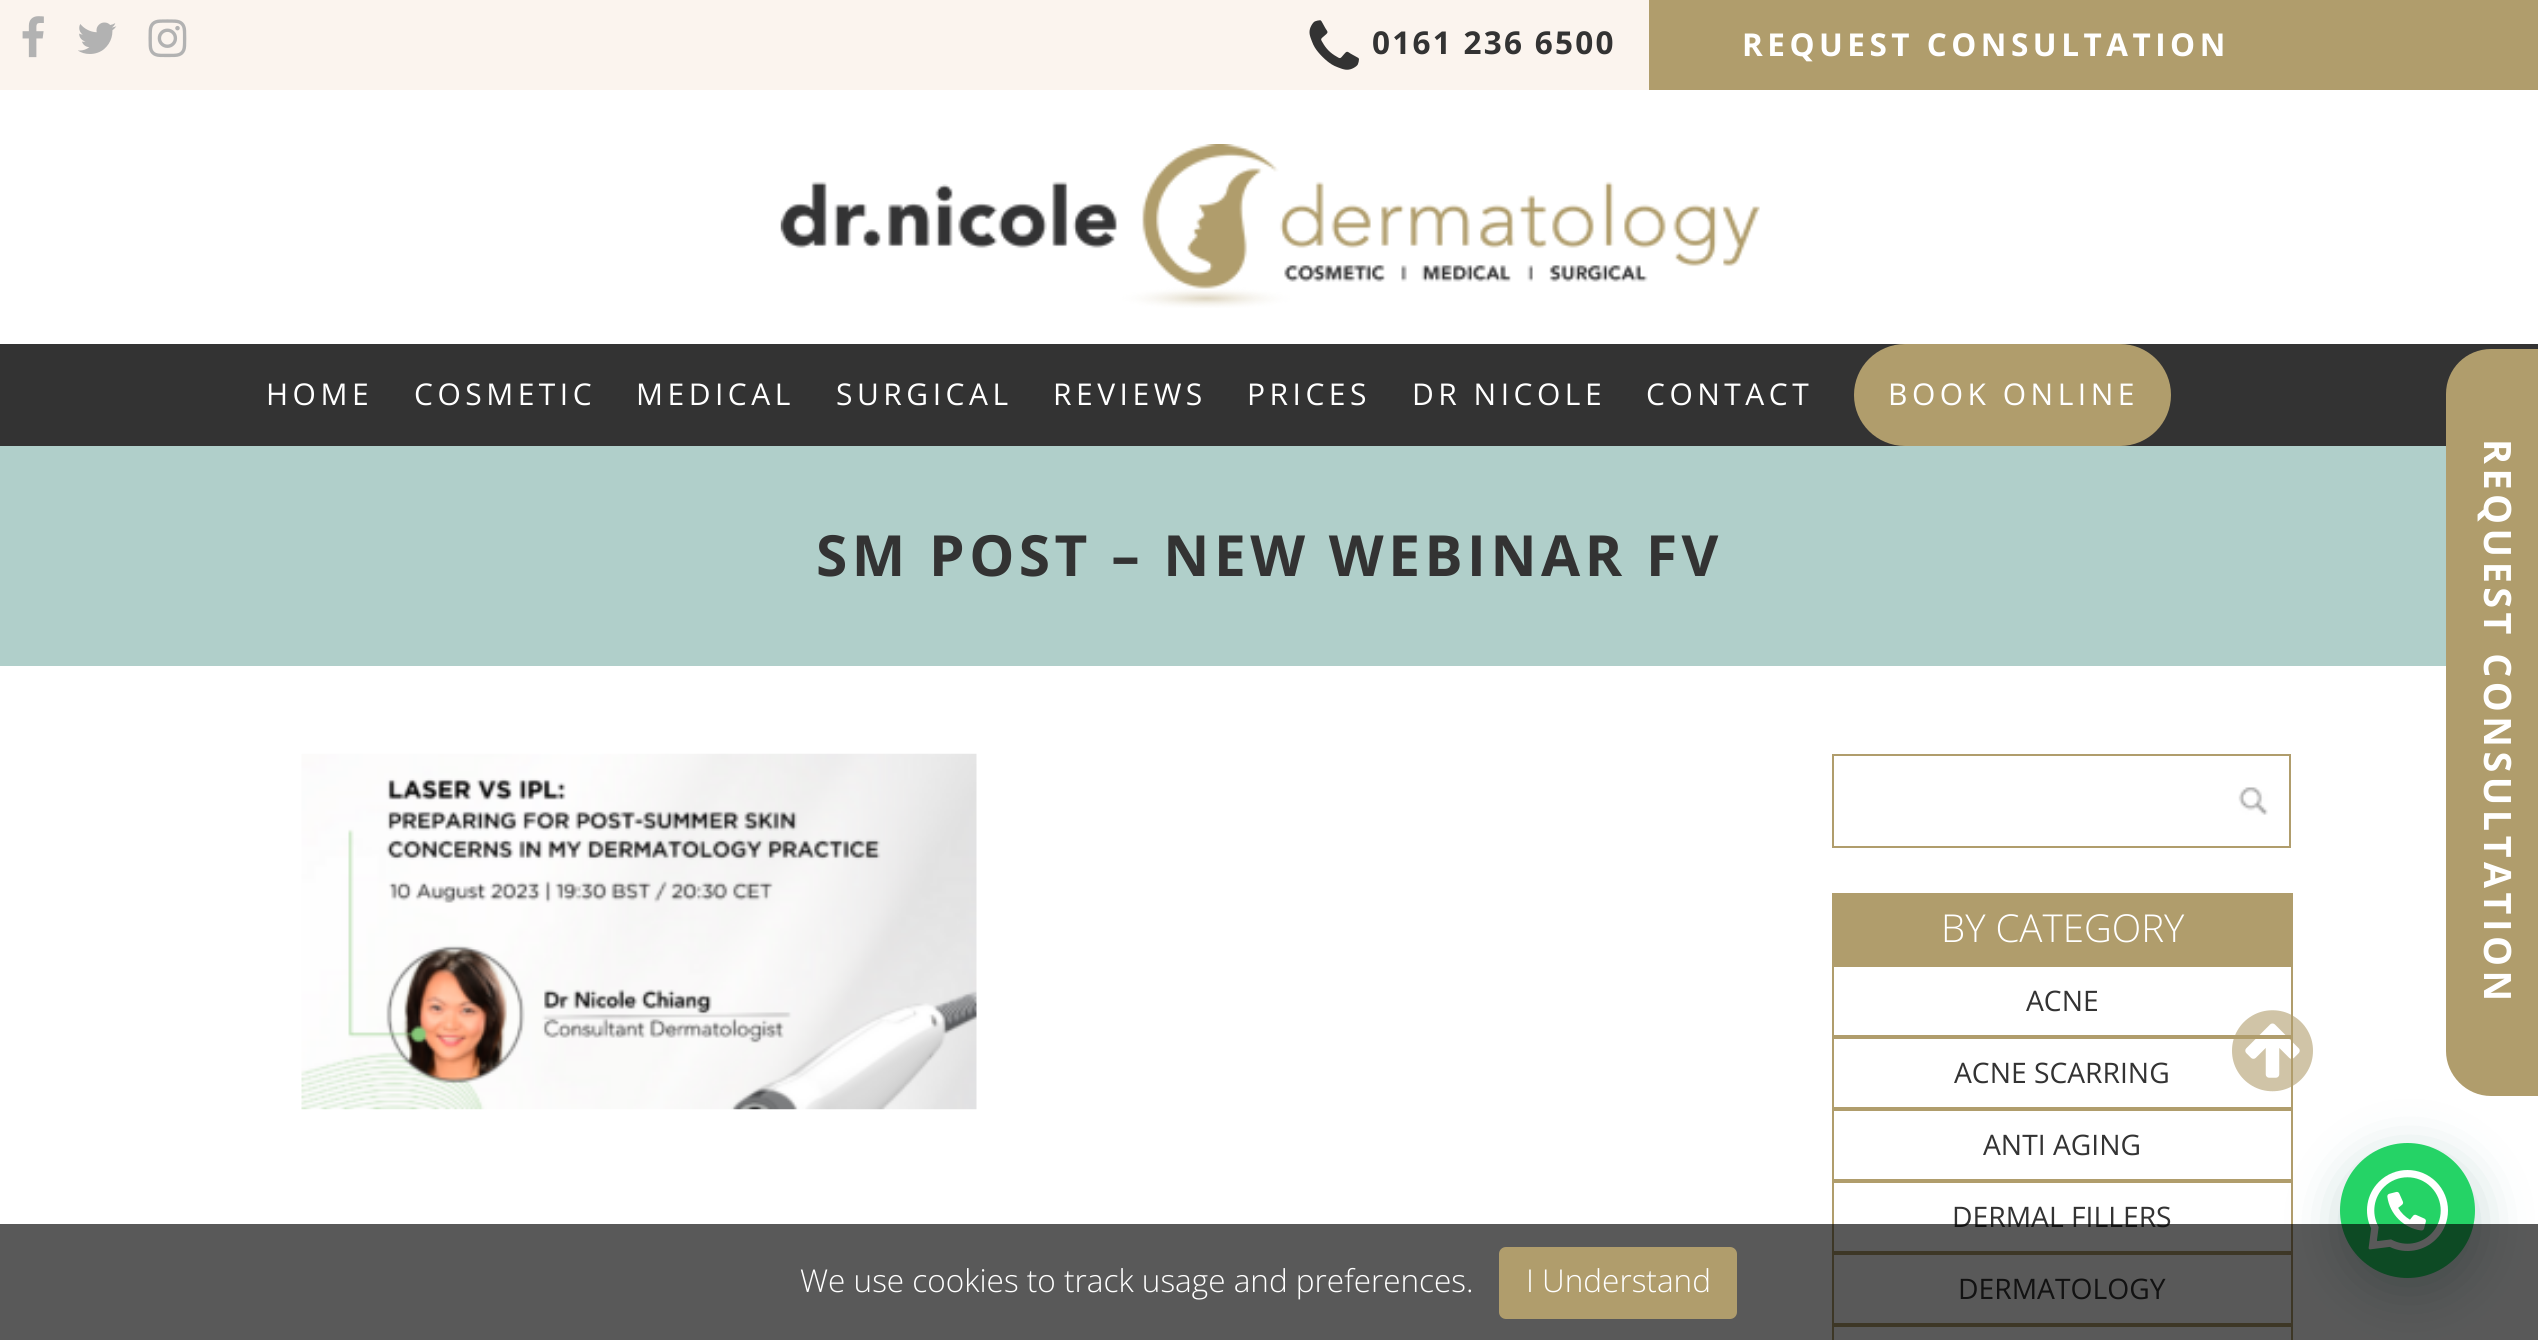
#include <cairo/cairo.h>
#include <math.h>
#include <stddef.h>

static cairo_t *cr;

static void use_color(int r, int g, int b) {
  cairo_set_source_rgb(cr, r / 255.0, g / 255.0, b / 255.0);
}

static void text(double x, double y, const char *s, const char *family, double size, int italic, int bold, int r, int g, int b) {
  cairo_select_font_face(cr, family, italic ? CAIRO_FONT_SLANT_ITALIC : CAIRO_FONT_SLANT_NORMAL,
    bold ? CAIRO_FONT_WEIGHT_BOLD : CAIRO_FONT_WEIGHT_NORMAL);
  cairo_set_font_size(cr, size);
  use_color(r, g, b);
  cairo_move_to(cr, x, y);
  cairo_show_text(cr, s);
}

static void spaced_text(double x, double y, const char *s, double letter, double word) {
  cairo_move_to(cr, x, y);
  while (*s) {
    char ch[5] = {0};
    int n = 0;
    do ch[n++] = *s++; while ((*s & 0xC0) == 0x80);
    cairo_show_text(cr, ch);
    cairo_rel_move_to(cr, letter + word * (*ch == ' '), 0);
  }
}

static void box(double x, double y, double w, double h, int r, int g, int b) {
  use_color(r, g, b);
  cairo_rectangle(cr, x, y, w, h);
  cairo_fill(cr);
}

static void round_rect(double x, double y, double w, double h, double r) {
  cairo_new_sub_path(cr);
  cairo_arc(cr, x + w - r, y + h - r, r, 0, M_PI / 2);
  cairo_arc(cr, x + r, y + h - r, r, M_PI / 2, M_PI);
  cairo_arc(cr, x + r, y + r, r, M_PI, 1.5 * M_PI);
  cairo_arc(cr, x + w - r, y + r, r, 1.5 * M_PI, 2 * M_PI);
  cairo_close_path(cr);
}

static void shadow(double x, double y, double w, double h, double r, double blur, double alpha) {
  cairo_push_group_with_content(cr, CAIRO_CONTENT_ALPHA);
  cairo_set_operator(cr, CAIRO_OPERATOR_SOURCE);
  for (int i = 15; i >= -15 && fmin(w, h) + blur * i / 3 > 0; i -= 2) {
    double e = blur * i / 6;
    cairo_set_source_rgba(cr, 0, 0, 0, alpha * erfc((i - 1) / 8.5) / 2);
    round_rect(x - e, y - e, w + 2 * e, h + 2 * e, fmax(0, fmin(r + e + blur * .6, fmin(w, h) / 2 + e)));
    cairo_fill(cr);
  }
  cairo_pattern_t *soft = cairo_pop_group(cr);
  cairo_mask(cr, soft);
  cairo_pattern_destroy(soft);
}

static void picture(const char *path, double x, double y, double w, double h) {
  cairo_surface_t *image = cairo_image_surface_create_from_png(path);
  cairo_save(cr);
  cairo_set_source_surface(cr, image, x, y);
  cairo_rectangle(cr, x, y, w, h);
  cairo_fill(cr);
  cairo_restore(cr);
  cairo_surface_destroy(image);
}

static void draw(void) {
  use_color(255, 255, 255);
  cairo_paint(cr);
  box(0, 0, 1649, 90, 251, 244, 238);
  picture("img_01.png", 22, 16, 22, 42);
  picture("img_02.png", 78, 22, 39, 32);
  picture("img_03.png", 148, 19, 39, 39);
  picture("img_04.png", 1309, 20, 50, 50);
  box(1649, 0, 889, 90, 176, 157, 108);
  picture("img_05.png", 780, 144, 980, 164);
  box(0, 344, 2538, 102, 51, 51, 51);
  use_color(176, 157, 108);
  round_rect(1854, 344, 317, 102, 51);
  cairo_fill(cr);
  box(0, 446, 2446, 220, 176, 207, 202);
  use_color(176, 157, 108);
  cairo_new_path(cr);
  cairo_move_to(cr, 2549, 349);
  cairo_line_to(cr, 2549, 1096);
  cairo_line_to(cr, 2491, 1096);
  cairo_curve_to(cr, 2466, 1096, 2446, 1075, 2446, 1051);
  cairo_line_to(cr, 2446, 394);
  cairo_curve_to(cr, 2446, 369, 2466, 349, 2491, 349);
  cairo_close_path(cr);
  cairo_fill(cr);
  picture("img_06.png", 301, 753, 676, 357);
  cairo_rectangle(cr, 1833, 755, 457, 92);
  cairo_stroke(cr);
  picture("img_07.png", 2238, 787, 30, 28);
  box(1832, 893, 461, 72, 176, 157, 108);
  cairo_rectangle(cr, 1833, 966, 459, 70);
  cairo_stroke(cr);
  cairo_rectangle(cr, 1833, 1038, 459, 70);
  cairo_stroke(cr);
  cairo_rectangle(cr, 1833, 1110, 459, 70);
  cairo_stroke(cr);
  cairo_rectangle(cr, 1833, 1182, 459, 70);
  cairo_stroke(cr);
  cairo_rectangle(cr, 1833, 1254, 459, 70);
  cairo_stroke(cr);
  cairo_rectangle(cr, 1833, 1326, 459, 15);
  cairo_stroke(cr);
  use_color(7, 94, 84);
  shadow(2342, 1157, 135, 135, 67.5, 27, 0.24);
  picture("img_08.png", 2232, 1010, 81, 82);
  use_color(37, 211, 102);
  cairo_arc(cr, 2407.5, 1210.5, 67.5, 0, 2 * M_PI);
  cairo_fill(cr);
  picture("img_09.png", 2367, 1170, 81, 81);
  cairo_select_font_face(cr, "Open Sans", CAIRO_FONT_SLANT_NORMAL, CAIRO_FONT_WEIGHT_BOLD);
  cairo_set_font_size(cr, 31.5);
  use_color(51, 51, 51);
  spaced_text(1372, 54, "0161 236 6500", 2.25, 0);
  use_color(255, 255, 255);
  spaced_text(1742, 56, "REQUEST CONSULTATION", 4.5, 0);
  cairo_select_font_face(cr, "Open Sans", CAIRO_FONT_SLANT_NORMAL, CAIRO_FONT_WEIGHT_NORMAL);
  cairo_set_font_size(cr, 30);
  spaced_text(266, 405, "HOME", 4.5, 0);
  spaced_text(414, 405, "COSMETIC", 4.5, 0);
  spaced_text(636, 405, "MEDICAL", 4.5, 0);
  spaced_text(836, 405, "SURGICAL", 4.5, 0);
  spaced_text(1053, 405, "REVIEWS", 4.5, 0);
  spaced_text(1247, 405, "PRICES", 4.5, 0);
  spaced_text(1412, 405, "DR NICOLE", 4.5, 0);
  spaced_text(1646, 405, "CONTACT", 4.5, 0);
  spaced_text(1888, 405, "BOOK ONLINE", 4.5, 0);
  cairo_select_font_face(cr, "Open Sans", CAIRO_FONT_SLANT_NORMAL, CAIRO_FONT_WEIGHT_BOLD);
  cairo_set_font_size(cr, 56.75);
  use_color(51, 51, 51);
  spaced_text(816, 576, "SM POST – NEW WEBINAR FV", 4.5, 0);
  cairo_set_font_size(cr, 37.75);
  use_color(255, 255, 255);
  cairo_save(cr);
  cairo_translate(cr, 2484, 439);
  cairo_rotate(cr, 90 * M_PI / 180);
  spaced_text(0, 0, "REQUEST CONSULTATION", 4.5, 0);
  cairo_restore(cr);
  text(1941, 942, "BY CATEGORY", "Open Sans Light", 38.5, 0, 0, 255, 255, 255);
  text(2026, 1011, "ACNE", "Open Sans", 28.25, 0, 0, 51, 51, 51);
  text(1954, 1083, "ACNE SCARRING", "Open Sans", 28.25, 0, 0, 51, 51, 51);
  text(1983, 1155, "ANTI AGING", "Open Sans", 28.25, 0, 0, 51, 51, 51);
  text(1952, 1227, "DERMAL FILLERS", "Open Sans", 28.25, 0, 0, 51, 51, 51);
  text(1958, 1299, "DERMATOLOGY", "Open Sans", 28.25, 0, 0, 51, 51, 51);
  cairo_set_source_rgba(cr, 0, 0, 0, 0.65);
  cairo_rectangle(cr, 0, 1224, 2538, 116);
  cairo_fill(cr);
  text(800, 1292, "We use cookies to track usage and preferences.", "Open Sans Light", 31.5, 0, 0, 255, 255, 255);
  use_color(176, 157, 108);
  round_rect(1499, 1247, 238, 72, 7);
  cairo_fill(cr);
  text(1526, 1292, "I Understand", "Open Sans Light", 31.5, 0, 0, 255, 255, 255);
}

int main(void) {
  cairo_surface_t *surface = cairo_image_surface_create(CAIRO_FORMAT_RGB24, 2538, 1340);
  cr = cairo_create(surface);
  cairo_font_options_t *options = cairo_font_options_create();
  cairo_font_options_set_hint_metrics(options, CAIRO_HINT_METRICS_OFF);
  cairo_font_options_set_hint_style(options, CAIRO_HINT_STYLE_NONE);
  cairo_set_font_options(cr, options);
  cairo_set_miter_limit(cr, 4);
  draw();
  cairo_surface_write_to_png(surface, "out.png");
  cairo_font_options_destroy(options);
  cairo_destroy(cr);
  cairo_surface_destroy(surface);
  return 0;
}
